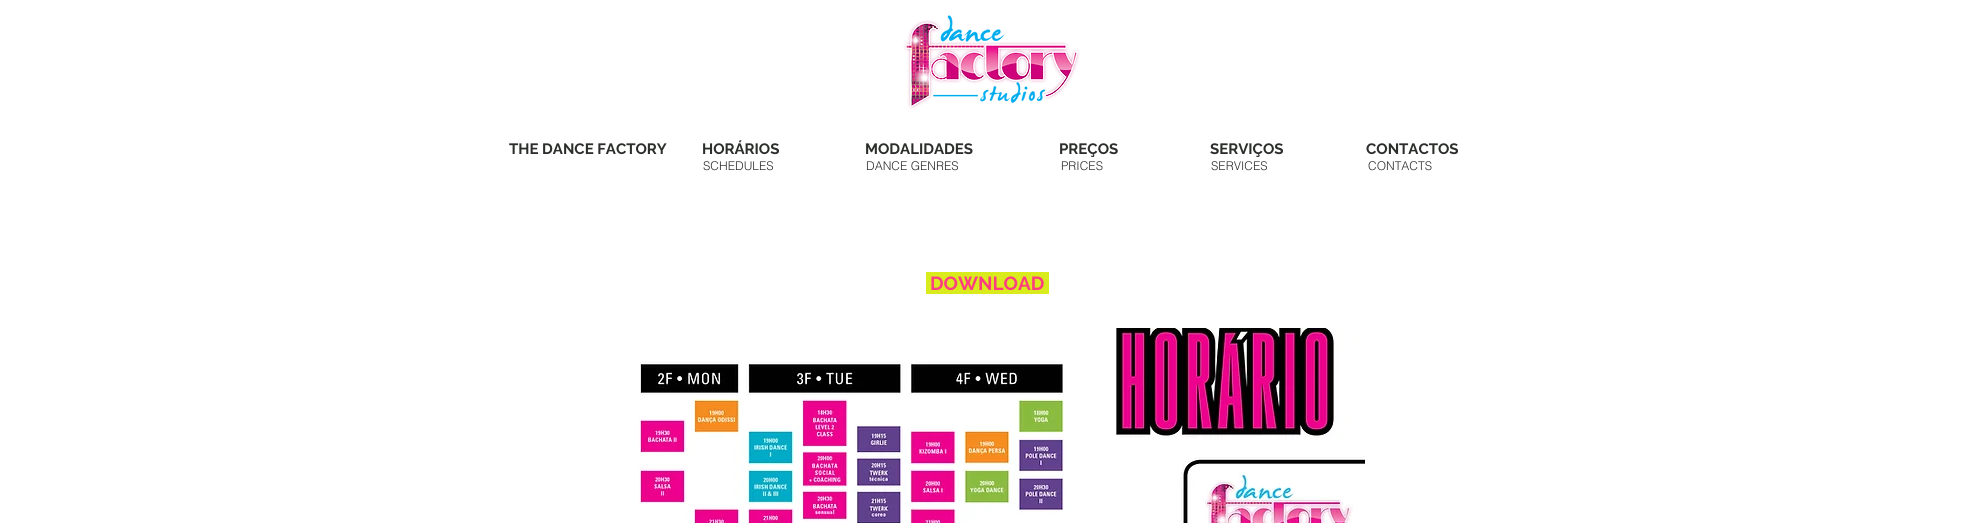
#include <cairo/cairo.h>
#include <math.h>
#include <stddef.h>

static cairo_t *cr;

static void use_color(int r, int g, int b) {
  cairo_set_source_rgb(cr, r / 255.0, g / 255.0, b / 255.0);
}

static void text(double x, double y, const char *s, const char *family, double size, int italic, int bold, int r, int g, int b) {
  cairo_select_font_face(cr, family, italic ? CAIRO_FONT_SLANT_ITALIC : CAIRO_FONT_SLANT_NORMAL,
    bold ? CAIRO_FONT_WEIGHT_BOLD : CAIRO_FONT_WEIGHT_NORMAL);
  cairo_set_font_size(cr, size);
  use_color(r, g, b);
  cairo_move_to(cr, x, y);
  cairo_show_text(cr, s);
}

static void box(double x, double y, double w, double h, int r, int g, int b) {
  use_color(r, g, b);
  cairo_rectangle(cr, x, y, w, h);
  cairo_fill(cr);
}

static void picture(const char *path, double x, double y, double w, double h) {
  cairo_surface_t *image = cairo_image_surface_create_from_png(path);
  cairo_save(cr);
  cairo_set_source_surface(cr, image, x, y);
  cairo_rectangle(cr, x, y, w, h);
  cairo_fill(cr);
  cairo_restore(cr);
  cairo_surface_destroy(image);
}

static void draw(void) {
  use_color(255, 255, 255);
  cairo_paint(cr);
  picture("img_01.png", 903, 15, 177, 94);
  box(926, 272, 123, 22, 217, 235, 28);
  picture("img_02.png", 639, 328, 726, 195);
  text(509, 154, "THE DANCE FACTORY", "Raleway", 15, 0, 1, 43, 46, 43);
  text(702, 154, "HORÁRIOS", "Raleway", 15, 0, 1, 43, 46, 43);
  text(865, 154, "MODALIDADES", "Raleway", 15, 0, 1, 43, 46, 43);
  text(1059, 154, "PREÇOS", "Raleway", 15, 0, 1, 43, 46, 43);
  text(1210, 154, "SERVIÇOS", "Raleway", 15, 0, 1, 43, 46, 43);
  text(1366, 154, "CONTACTOS", "Raleway", 15, 0, 1, 43, 46, 43);
  text(703, 170, "SCHEDULES", "helvetica Light", 12, 0, 0, 43, 46, 43);
  text(866, 170, "DANCE GENRES", "helvetica Light", 12, 0, 0, 43, 46, 43);
  text(1061, 170, "PRICES", "helvetica Light", 12, 0, 0, 43, 46, 43);
  text(1211, 170, "SERVICES", "helvetica Light", 12, 0, 0, 43, 46, 43);
  text(1368, 170, "CONTACTS", "helvetica Light", 12, 0, 0, 43, 46, 43);
  text(930, 290, "DOWNLOAD", "Raleway", 19, 0, 1, 255, 61, 129);
}

int main(void) {
  cairo_surface_t *surface = cairo_image_surface_create(CAIRO_FORMAT_RGB24, 1977, 523);
  cr = cairo_create(surface);
  cairo_font_options_t *options = cairo_font_options_create();
  cairo_font_options_set_hint_metrics(options, CAIRO_HINT_METRICS_OFF);
  cairo_font_options_set_hint_style(options, CAIRO_HINT_STYLE_NONE);
  cairo_set_font_options(cr, options);
  cairo_set_miter_limit(cr, 4);
  draw();
  cairo_surface_write_to_png(surface, "out.png");
  cairo_font_options_destroy(options);
  cairo_destroy(cr);
  cairo_surface_destroy(surface);
  return 0;
}
